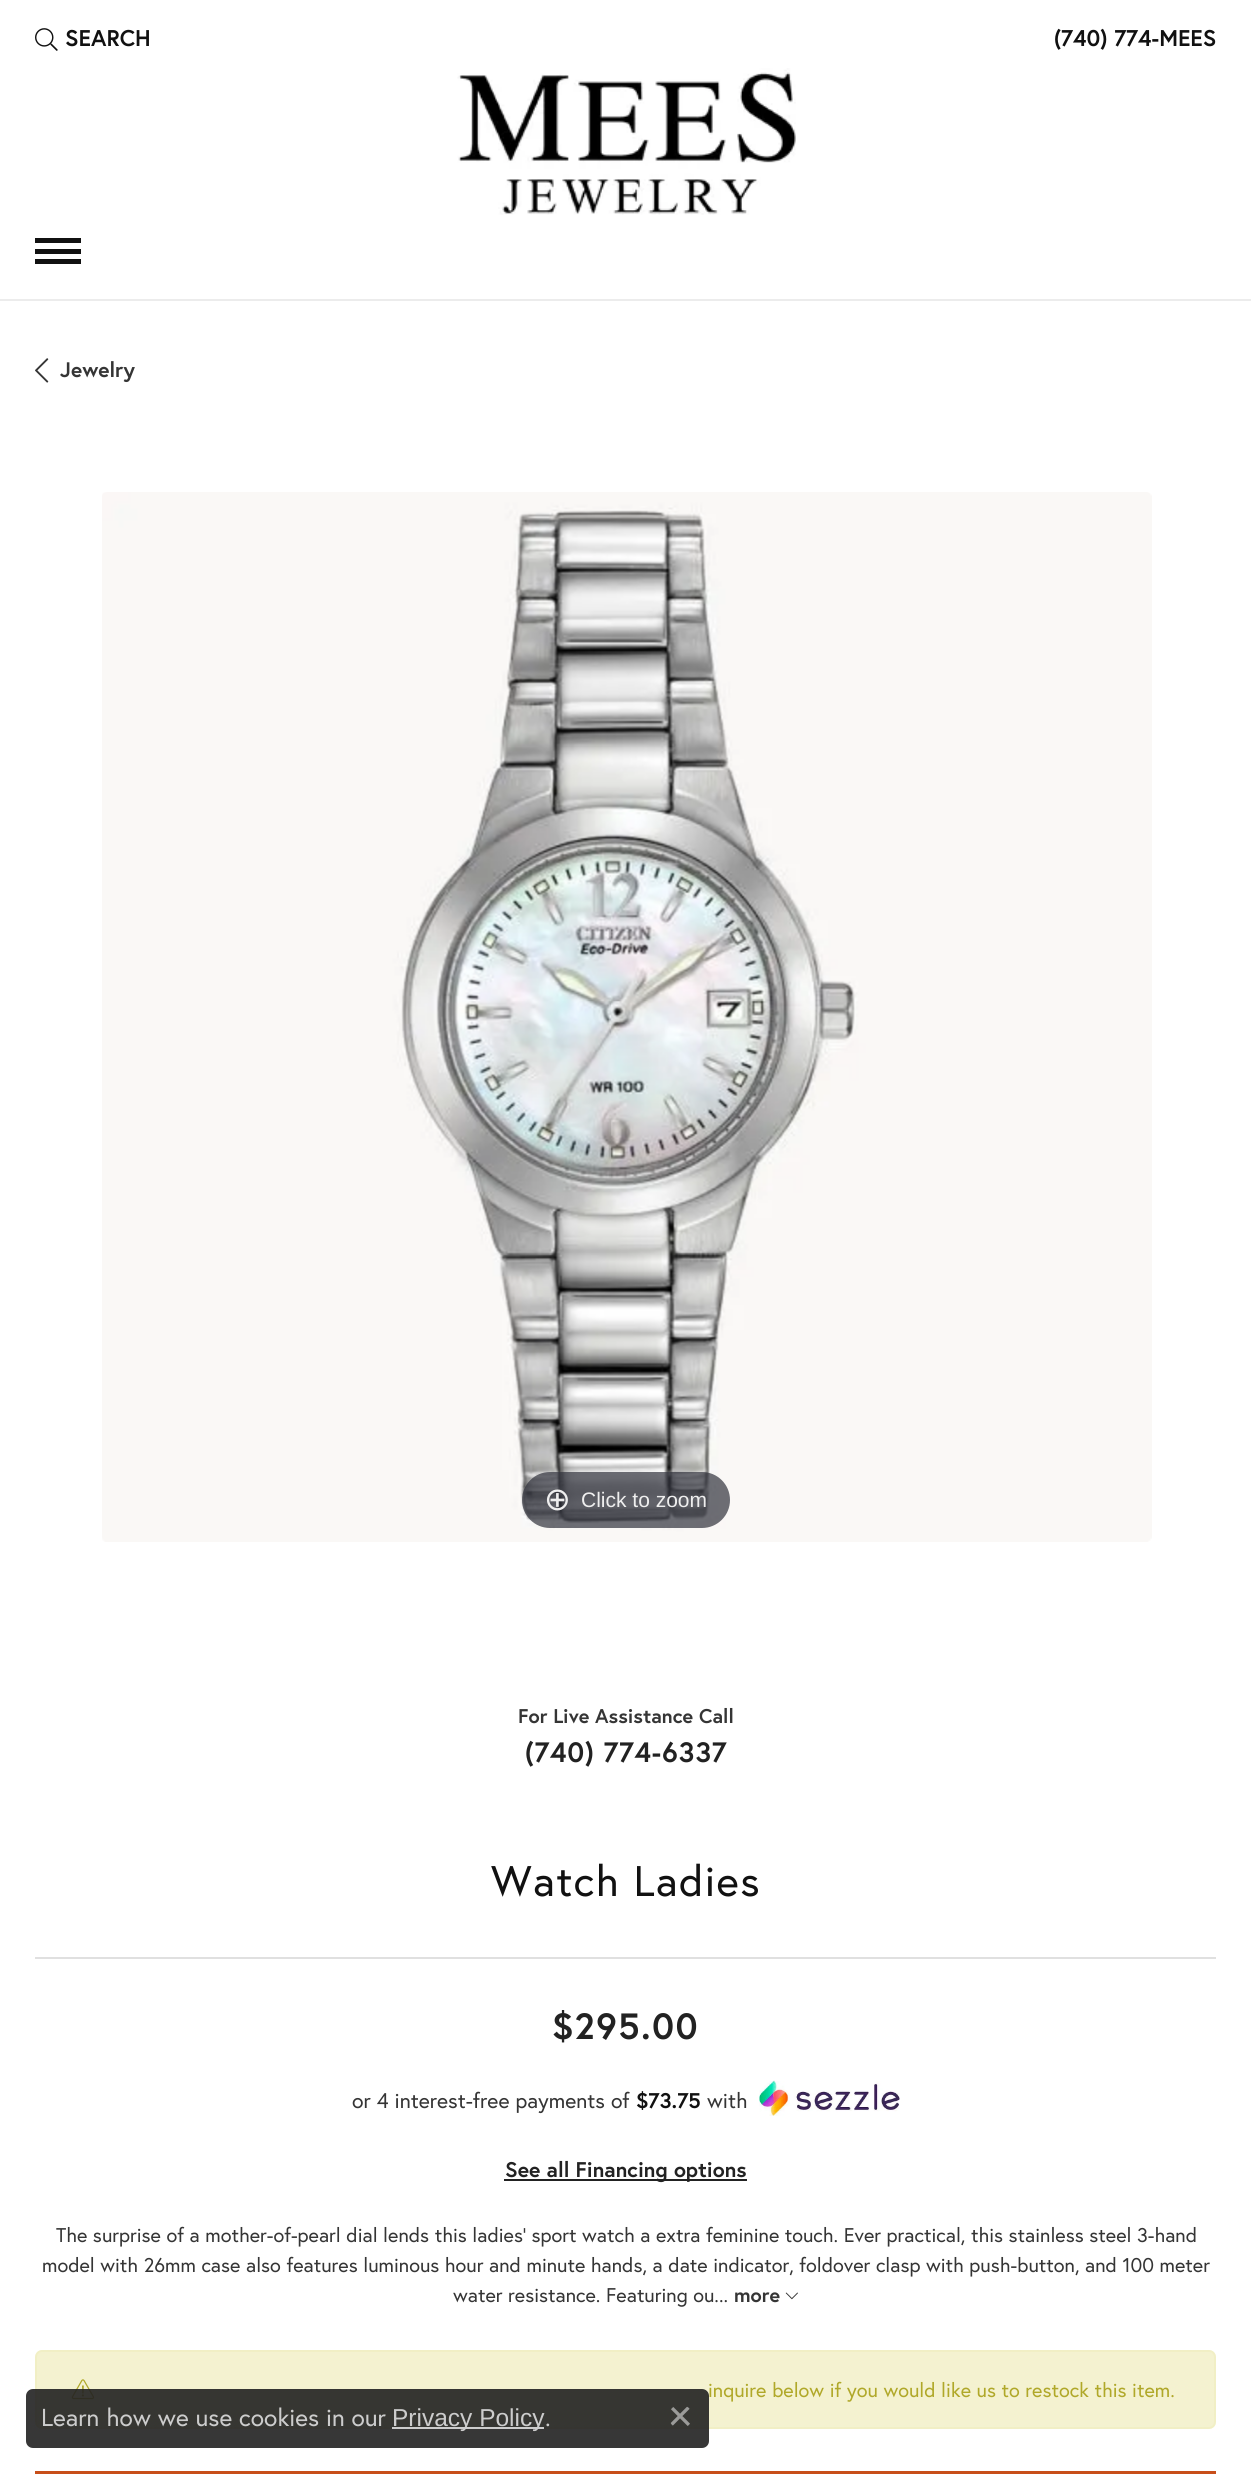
#include <cairo/cairo.h>
#include <math.h>
#include <stddef.h>

static cairo_t *cr;

static void use_color(int r, int g, int b) {
  cairo_set_source_rgb(cr, r / 255.0, g / 255.0, b / 255.0);
}

static void text(double x, double y, const char *s, const char *family, double size, int italic, int bold, int r, int g, int b) {
  cairo_select_font_face(cr, family, italic ? CAIRO_FONT_SLANT_ITALIC : CAIRO_FONT_SLANT_NORMAL,
    bold ? CAIRO_FONT_WEIGHT_BOLD : CAIRO_FONT_WEIGHT_NORMAL);
  cairo_set_font_size(cr, size);
  use_color(r, g, b);
  cairo_move_to(cr, x, y);
  cairo_show_text(cr, s);
}

static void spaced_text(double x, double y, const char *s, double letter, double word) {
  cairo_move_to(cr, x, y);
  while (*s) {
    char ch[5] = {0};
    int n = 0;
    do ch[n++] = *s++; while ((*s & 0xC0) == 0x80);
    cairo_show_text(cr, ch);
    cairo_rel_move_to(cr, letter + word * (*ch == ' '), 0);
  }
}

static void box(double x, double y, double w, double h, int r, int g, int b) {
  use_color(r, g, b);
  cairo_rectangle(cr, x, y, w, h);
  cairo_fill(cr);
}

static void round_rect(double x, double y, double w, double h, double r) {
  cairo_new_sub_path(cr);
  cairo_arc(cr, x + w - r, y + h - r, r, 0, M_PI / 2);
  cairo_arc(cr, x + r, y + h - r, r, M_PI / 2, M_PI);
  cairo_arc(cr, x + r, y + r, r, M_PI, 1.5 * M_PI);
  cairo_arc(cr, x + w - r, y + r, r, 1.5 * M_PI, 2 * M_PI);
  cairo_close_path(cr);
}

static void picture(const char *path, double x, double y, double w, double h) {
  cairo_surface_t *image = cairo_image_surface_create_from_png(path);
  cairo_save(cr);
  cairo_set_source_surface(cr, image, x, y);
  cairo_rectangle(cr, x, y, w, h);
  cairo_fill(cr);
  cairo_restore(cr);
  cairo_surface_destroy(image);
}

static void draw(void) {
  use_color(255, 255, 255);
  cairo_paint(cr);
  picture("img_01.png", 35, 28, 23, 23);
  picture("img_02.png", 457, 68, 339, 147);
  box(0, 299, 1251, 2, 236, 236, 236);
  box(35, 238, 46, 5, 17, 17, 17);
  box(35, 249, 46, 5, 17, 17, 17);
  box(35, 259, 46, 5, 17, 17, 17);
  picture("img_03.png", 35, 358, 14, 25);
  picture("img_04.png", 102, 492, 1050, 1050);
  cairo_set_source_rgba(cr, 0.192, 0.2, 0.239, 0.7);
  round_rect(522, 1472, 208, 56, 28);
  cairo_fill(cr);
  box(35, 1957, 1181, 2, 224, 224, 224);
  picture("img_05.png", 759, 2080, 141, 36);
  box(504, 2179, 243, 2, 34, 34, 34);
  picture("img_06.png", 785, 2292, 13, 8);
  use_color(244, 242, 208);
  round_rect(35, 2350, 1181, 79, 7);
  cairo_fill(cr);
  round_rect(36, 2351, 1179, 77, 6);
  cairo_set_source_rgba(cr, 0.859, 0.831, 0.388, 0.1);
  cairo_stroke(cr);
  picture("img_07.png", 71, 2379, 24, 21);
  box(35, 2471, 1181, 3, 200, 79, 26);
  cairo_set_source_rgba(cr, 0.133, 0.133, 0.133, 0.9);
  round_rect(26, 2389, 683, 59, 7);
  cairo_fill(cr);
  box(392, 2427, 152, 2, 204, 204, 204);
  picture("img_08.png", 670, 2406, 20, 20);
  text(65, 46, "SEARCH", "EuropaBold", 22.75, 0, 1, 17, 17, 17);
  text(1054, 46, "(740) 774-MEES", "EuropaBold", 22.75, 0, 1, 17, 17, 17);
  text(60, 377, "Jewelry", "EuropaBold", 21, 0, 1, 53, 53, 53);
  text(544, 1510, "⊕", "DejaVu Sans", 32, 0, 0, 238, 238, 238);
  text(581, 1507, "Click to zoom", "Liberation Sans", 21, 0, 0, 238, 238, 238);
  text(518, 1723, "For Live Assistance Call", "EuropaBold", 19.87, 0, 1, 53, 53, 53);
  cairo_set_font_size(cr, 28);
  use_color(34, 34, 34);
  spaced_text(525, 1762, "(740) 774-6337", 0.75, 0);
  cairo_select_font_face(cr, "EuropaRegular", CAIRO_FONT_SLANT_NORMAL, CAIRO_FONT_WEIGHT_NORMAL);
  cairo_set_font_size(cr, 42.75);
  use_color(17, 17, 17);
  spaced_text(491, 1896, "Watch Ladies", 1.4, 0);
  cairo_select_font_face(cr, "EuropaBold", CAIRO_FONT_SLANT_NORMAL, CAIRO_FONT_WEIGHT_BOLD);
  cairo_set_font_size(cr, 36.5);
  use_color(34, 34, 34);
  spaced_text(552, 2039, "$295.00", 1.4, 0);
  text(352, 2108, "or 4 interest-free payments of", "EuropaRegular", 21.25, 0, 0, 53, 53, 53);
  text(636, 2108, "$73.75", "EuropaBold", 21.25, 0, 1, 17, 17, 17);
  text(707, 2108, "with", "EuropaRegular", 21.25, 0, 0, 53, 53, 53);
  text(505, 2177, "See all Financing options", "EuropaBold", 21.25, 0, 1, 34, 34, 34);
  text(56, 2242, "The surprise of a mother-of-pearl dial lends this ladies' sport watch a extra feminine touch. Ever practical, this stainless steel 3-hand", "EuropaRegular", 19.87, 0, 0, 53, 53, 53);
  text(42, 2272, "model with 26mm case also features luminous hour and minute hands, a date indicator, foldover clasp with push-button, and 100 meter", "EuropaRegular", 19.87, 0, 0, 53, 53, 53);
  text(453, 2302, "water resistance. Featuring ou...", "EuropaRegular", 19.87, 0, 0, 53, 53, 53);
  text(734, 2302, "more", "EuropaBold", 19.87, 0, 1, 53, 53, 53);
  text(708, 2397, "inquire below if you would like us to restock this item.", "EuropaRegular", 19.87, 0, 0, 176, 168, 41);
  text(41, 2426, "Learn how we use cookies in our", "EuropaRegular", 24.5, 0, 0, 204, 204, 204);
  text(392, 2426, "Privacy Policy", "Liberation Sans", 24.5, 0, 0, 204, 204, 204);
  text(545, 2426, ".", "EuropaRegular", 24.5, 0, 0, 204, 204, 204);
}

int main(void) {
  cairo_surface_t *surface = cairo_image_surface_create(CAIRO_FORMAT_RGB24, 1251, 2474);
  cr = cairo_create(surface);
  cairo_font_options_t *options = cairo_font_options_create();
  cairo_font_options_set_hint_metrics(options, CAIRO_HINT_METRICS_OFF);
  cairo_font_options_set_hint_style(options, CAIRO_HINT_STYLE_NONE);
  cairo_set_font_options(cr, options);
  cairo_set_miter_limit(cr, 4);
  draw();
  cairo_surface_write_to_png(surface, "out.png");
  cairo_font_options_destroy(options);
  cairo_destroy(cr);
  cairo_surface_destroy(surface);
  return 0;
}
